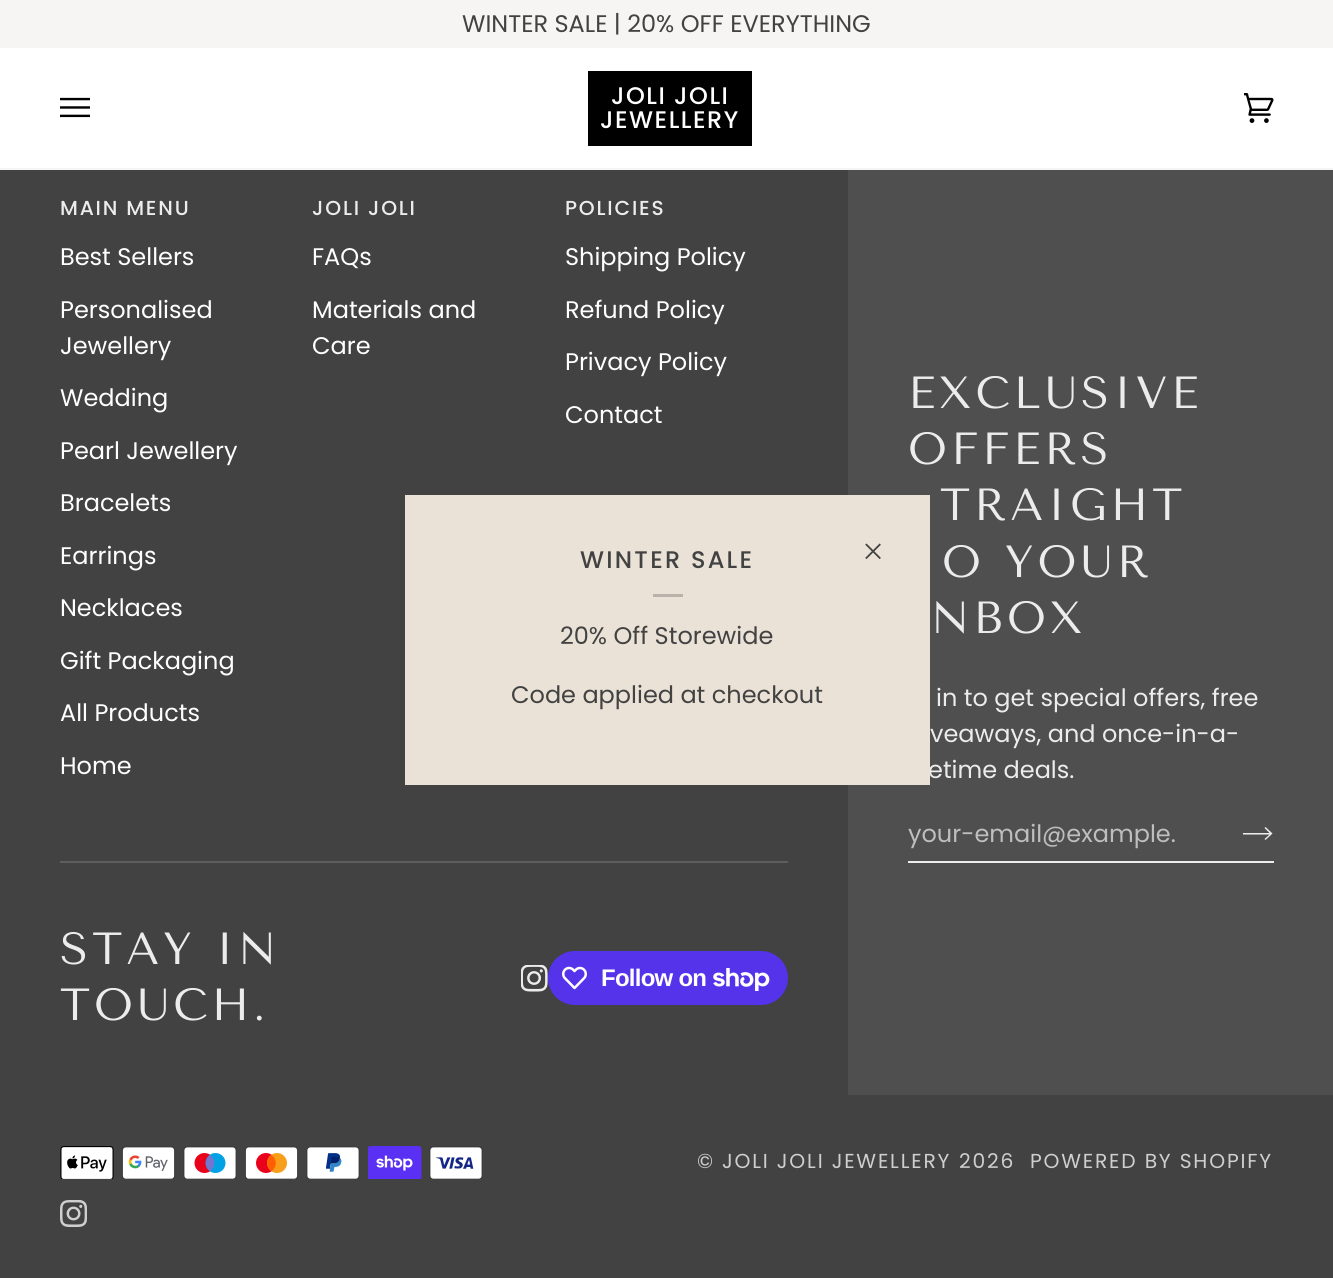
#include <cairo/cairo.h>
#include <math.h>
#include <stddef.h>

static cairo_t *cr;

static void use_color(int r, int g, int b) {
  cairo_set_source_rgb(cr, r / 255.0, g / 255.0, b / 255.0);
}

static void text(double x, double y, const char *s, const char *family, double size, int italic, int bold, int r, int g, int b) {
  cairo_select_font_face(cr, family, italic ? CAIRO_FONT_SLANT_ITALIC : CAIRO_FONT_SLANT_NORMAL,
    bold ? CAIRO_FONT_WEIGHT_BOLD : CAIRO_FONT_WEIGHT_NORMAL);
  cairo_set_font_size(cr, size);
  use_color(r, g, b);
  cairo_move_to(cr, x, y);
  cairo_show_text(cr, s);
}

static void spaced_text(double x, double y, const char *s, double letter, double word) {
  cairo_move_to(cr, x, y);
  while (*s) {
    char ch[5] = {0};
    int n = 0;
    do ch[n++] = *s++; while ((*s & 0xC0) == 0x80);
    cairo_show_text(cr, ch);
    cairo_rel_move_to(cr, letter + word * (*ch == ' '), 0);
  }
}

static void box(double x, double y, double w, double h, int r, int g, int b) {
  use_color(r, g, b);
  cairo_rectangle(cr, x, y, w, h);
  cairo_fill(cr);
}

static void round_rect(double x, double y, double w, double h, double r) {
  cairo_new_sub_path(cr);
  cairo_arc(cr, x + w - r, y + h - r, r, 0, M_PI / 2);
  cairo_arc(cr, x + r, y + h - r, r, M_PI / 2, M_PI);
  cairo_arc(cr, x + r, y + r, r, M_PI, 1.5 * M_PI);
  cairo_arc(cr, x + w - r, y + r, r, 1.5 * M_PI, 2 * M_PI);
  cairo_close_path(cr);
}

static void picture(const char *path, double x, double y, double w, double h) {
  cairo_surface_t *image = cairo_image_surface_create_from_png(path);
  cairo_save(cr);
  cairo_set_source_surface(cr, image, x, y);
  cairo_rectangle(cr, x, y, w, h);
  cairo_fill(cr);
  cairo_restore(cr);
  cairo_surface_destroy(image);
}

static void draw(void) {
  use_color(66, 66, 66);
  cairo_paint(cr);
  box(0, 168, 1333, 2, 247, 245, 244);
  box(0, 0, 1333, 48, 247, 245, 244);
  box(0, 48, 1333, 120, 255, 255, 255);
  picture("img_01.png", 60, 97, 30, 21);
  box(588, 71, 164, 75, 0, 0, 0);
  picture("img_02.png", 1244, 93, 30, 30);
  box(60, 861, 728, 2, 94, 94, 94);
  picture("img_03.png", 521, 965, 27, 27);
  use_color(84, 51, 235);
  round_rect(548, 951, 240, 54, 27);
  cairo_fill(cr);
  picture("img_04.png", 562, 966, 25, 24);
  picture("img_05.png", 713, 968, 57, 23);
  box(848, 170, 485, 925, 79, 79, 79);
  box(908, 861, 366, 2, 237, 237, 237);
  cairo_new_path(cr);
  cairo_move_to(cr, 1264.5, 828);
  cairo_line_to(cr, 1265.5, 827);
  cairo_line_to(cr, 1272.5, 833.5);
  cairo_line_to(cr, 1265.5, 840);
  cairo_line_to(cr, 1264.5, 839);
  cairo_line_to(cr, 1269.5, 834.5);
  cairo_line_to(cr, 1243, 834.5);
  cairo_line_to(cr, 1243, 833);
  cairo_line_to(cr, 1269.5, 833);
  cairo_close_path(cr);
  cairo_fill(cr);
  picture("img_07.png", 60, 1146, 54, 33);
  picture("img_08.png", 122, 1146, 53, 33);
  picture("img_09.png", 183, 1146, 54, 33);
  picture("img_10.png", 245, 1146, 53, 33);
  picture("img_11.png", 306, 1146, 54, 33);
  picture("img_12.png", 368, 1146, 54, 33);
  picture("img_13.png", 429, 1146, 54, 33);
  picture("img_14.png", 60, 1200, 27, 27);
  text(462, 32, "WINTER SALE | 20% OFF EVERYTHING", "Poppins", 24, 0, 0, 66, 66, 66);
  cairo_select_font_face(cr, "Poppins Medium", CAIRO_FONT_SLANT_NORMAL, CAIRO_FONT_WEIGHT_NORMAL);
  use_color(255, 255, 255);
  spaced_text(611, 104, "JOLI JOLI", 1.5, 0);
  spaced_text(600, 128, "JEWELLERY", 1.5, 0);
  cairo_set_font_size(cr, 20.25);
  use_color(236, 236, 236);
  spaced_text(60, 215, "MAIN MENU", 1.8, 0);
  text(60, 265, "Best Sellers", "Poppins", 24, 0, 0, 255, 255, 255);
  text(60, 318, "Personalised", "Poppins", 24, 0, 0, 255, 255, 255);
  text(60, 354, "Jewellery", "Poppins", 24, 0, 0, 255, 255, 255);
  text(60, 406, "Wedding", "Poppins", 24, 0, 0, 255, 255, 255);
  text(60, 459, "Pearl Jewellery", "Poppins", 24, 0, 0, 255, 255, 255);
  text(60, 511, "Bracelets", "Poppins", 24, 0, 0, 255, 255, 255);
  text(60, 564, "Earrings", "Poppins", 24, 0, 0, 255, 255, 255);
  text(60, 616, "Necklaces", "Poppins", 24, 0, 0, 255, 255, 255);
  text(60, 669, "Gift Packaging", "Poppins", 24, 0, 0, 255, 255, 255);
  text(60, 721, "All Products", "Poppins", 24, 0, 0, 255, 255, 255);
  text(60, 774, "Home", "Poppins", 24, 0, 0, 255, 255, 255);
  cairo_select_font_face(cr, "Poppins Medium", CAIRO_FONT_SLANT_NORMAL, CAIRO_FONT_WEIGHT_NORMAL);
  cairo_set_font_size(cr, 20.25);
  use_color(236, 236, 236);
  spaced_text(312, 215, "JOLI JOLI", 1.8, 0);
  text(312, 265, "FAQs", "Poppins", 24, 0, 0, 255, 255, 255);
  text(312, 318, "Materials and", "Poppins", 24, 0, 0, 255, 255, 255);
  text(312, 354, "Care", "Poppins", 24, 0, 0, 255, 255, 255);
  cairo_select_font_face(cr, "Poppins Medium", CAIRO_FONT_SLANT_NORMAL, CAIRO_FONT_WEIGHT_NORMAL);
  cairo_set_font_size(cr, 20.25);
  use_color(236, 236, 236);
  spaced_text(565, 215, "POLICIES", 1.8, 0);
  text(565, 265, "Shipping Policy", "Poppins", 24, 0, 0, 255, 255, 255);
  text(565, 318, "Refund Policy", "Poppins", 24, 0, 0, 255, 255, 255);
  text(565, 370, "Privacy Policy", "Poppins", 24, 0, 0, 255, 255, 255);
  text(565, 423, "Contact", "Poppins", 24, 0, 0, 255, 255, 255);
  cairo_select_font_face(cr, "Tenor Sans", CAIRO_FONT_SLANT_NORMAL, CAIRO_FONT_WEIGHT_NORMAL);
  cairo_set_font_size(cr, 45);
  use_color(236, 236, 236);
  spaced_text(60, 964, "STAY IN", 4, 0);
  spaced_text(60, 1020, "TOUCH.", 4, 0);
  cairo_select_font_face(cr, "Liberation Sans", CAIRO_FONT_SLANT_NORMAL, CAIRO_FONT_WEIGHT_BOLD);
  cairo_set_font_size(cr, 24);
  use_color(255, 255, 255);
  spaced_text(601, 986, "Follow on", -0.75, 0);
  cairo_select_font_face(cr, "Tenor Sans", CAIRO_FONT_SLANT_NORMAL, CAIRO_FONT_WEIGHT_NORMAL);
  cairo_set_font_size(cr, 45);
  use_color(236, 236, 236);
  spaced_text(908, 408, "EXCLUSIVE", 4, 0);
  spaced_text(908, 464, "OFFERS", 4, 0);
  spaced_text(940, 520, "TRAIGHT", 4, 0);
  spaced_text(942, 577, "O YOUR", 4, 0);
  spaced_text(931, 633, "NBOX", 4, 0);
  text(936, 706, "in to get special offers, free", "Poppins", 24, 0, 0, 236, 236, 236);
  text(930, 742, "veaways, and once-in-a-", "Poppins", 24, 0, 0, 236, 236, 236);
  text(928, 778, "etime deals.", "Poppins", 24, 0, 0, 236, 236, 236);
  text(908, 842, "your-email@example.", "Poppins", 24, 0, 0, 190, 190, 190);
  box(405, 495, 525, 290, 234, 226, 214);
  cairo_select_font_face(cr, "Poppins Medium", CAIRO_FONT_SLANT_NORMAL, CAIRO_FONT_WEIGHT_NORMAL);
  use_color(66, 66, 66);
  spaced_text(580, 568, "WINTER SALE", 2.25, 0);
  picture("img_06.png", 865, 543, 16, 16);
  box(653, 594, 30, 3, 184, 178, 170);
  text(560, 644, "20% Off Storewide", "Poppins", 24, 0, 0, 66, 66, 66);
  text(511, 703, "Code applied at checkout", "Poppins", 24, 0, 0, 66, 66, 66);
  cairo_set_font_size(cr, 20.25);
  use_color(207, 207, 207);
  spaced_text(697, 1168, "© JOLI JOLI JEWELLERY", 1.8, 0);
  spaced_text(959, 1168, "2026", 1.8, 0);
  spaced_text(1030, 1168, "POWERED BY SHOPIFY", 1.8, 0);
}

int main(void) {
  cairo_surface_t *surface = cairo_image_surface_create(CAIRO_FORMAT_RGB24, 1333, 1278);
  cr = cairo_create(surface);
  cairo_font_options_t *options = cairo_font_options_create();
  cairo_font_options_set_hint_metrics(options, CAIRO_HINT_METRICS_OFF);
  cairo_font_options_set_hint_style(options, CAIRO_HINT_STYLE_NONE);
  cairo_set_font_options(cr, options);
  cairo_set_miter_limit(cr, 4);
  draw();
  cairo_surface_write_to_png(surface, "out.png");
  cairo_font_options_destroy(options);
  cairo_destroy(cr);
  cairo_surface_destroy(surface);
  return 0;
}
